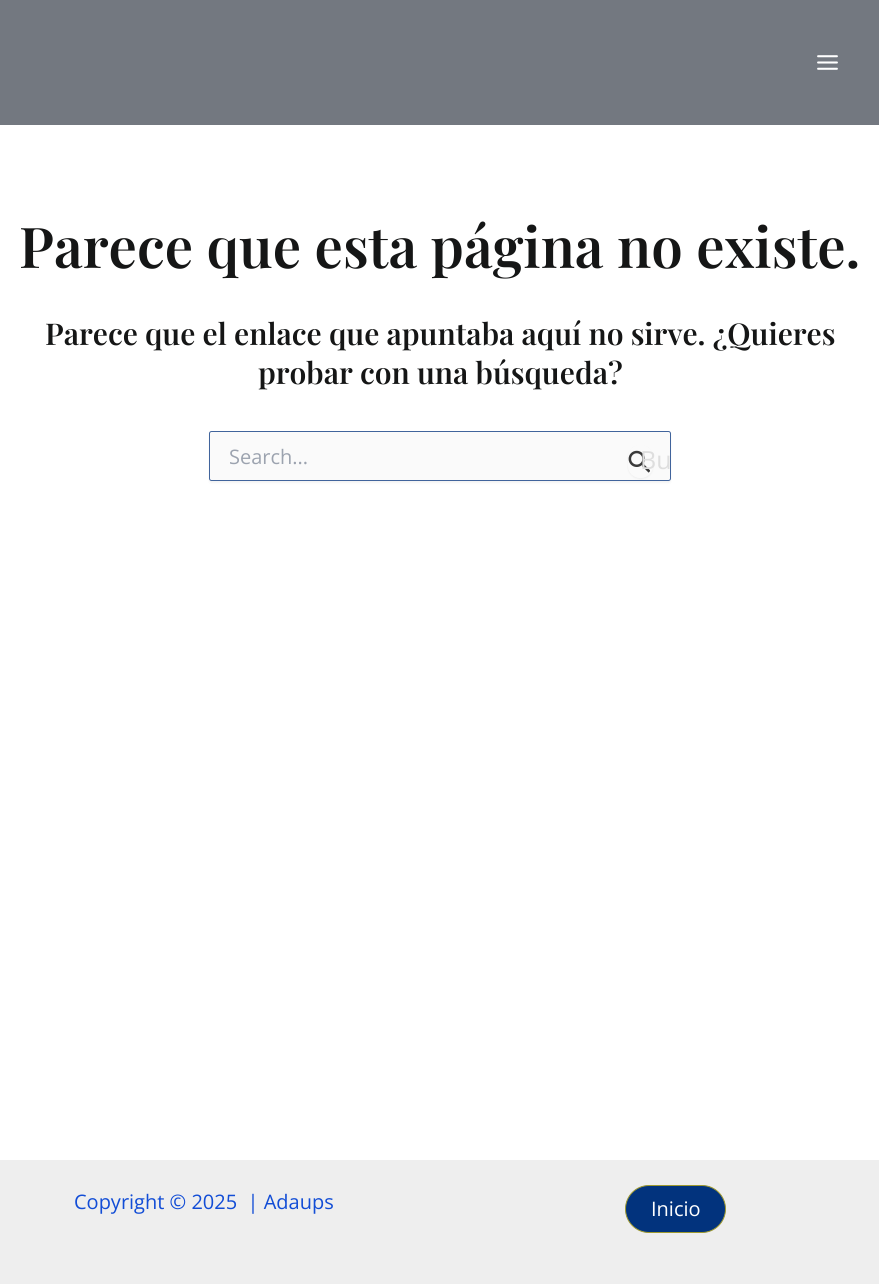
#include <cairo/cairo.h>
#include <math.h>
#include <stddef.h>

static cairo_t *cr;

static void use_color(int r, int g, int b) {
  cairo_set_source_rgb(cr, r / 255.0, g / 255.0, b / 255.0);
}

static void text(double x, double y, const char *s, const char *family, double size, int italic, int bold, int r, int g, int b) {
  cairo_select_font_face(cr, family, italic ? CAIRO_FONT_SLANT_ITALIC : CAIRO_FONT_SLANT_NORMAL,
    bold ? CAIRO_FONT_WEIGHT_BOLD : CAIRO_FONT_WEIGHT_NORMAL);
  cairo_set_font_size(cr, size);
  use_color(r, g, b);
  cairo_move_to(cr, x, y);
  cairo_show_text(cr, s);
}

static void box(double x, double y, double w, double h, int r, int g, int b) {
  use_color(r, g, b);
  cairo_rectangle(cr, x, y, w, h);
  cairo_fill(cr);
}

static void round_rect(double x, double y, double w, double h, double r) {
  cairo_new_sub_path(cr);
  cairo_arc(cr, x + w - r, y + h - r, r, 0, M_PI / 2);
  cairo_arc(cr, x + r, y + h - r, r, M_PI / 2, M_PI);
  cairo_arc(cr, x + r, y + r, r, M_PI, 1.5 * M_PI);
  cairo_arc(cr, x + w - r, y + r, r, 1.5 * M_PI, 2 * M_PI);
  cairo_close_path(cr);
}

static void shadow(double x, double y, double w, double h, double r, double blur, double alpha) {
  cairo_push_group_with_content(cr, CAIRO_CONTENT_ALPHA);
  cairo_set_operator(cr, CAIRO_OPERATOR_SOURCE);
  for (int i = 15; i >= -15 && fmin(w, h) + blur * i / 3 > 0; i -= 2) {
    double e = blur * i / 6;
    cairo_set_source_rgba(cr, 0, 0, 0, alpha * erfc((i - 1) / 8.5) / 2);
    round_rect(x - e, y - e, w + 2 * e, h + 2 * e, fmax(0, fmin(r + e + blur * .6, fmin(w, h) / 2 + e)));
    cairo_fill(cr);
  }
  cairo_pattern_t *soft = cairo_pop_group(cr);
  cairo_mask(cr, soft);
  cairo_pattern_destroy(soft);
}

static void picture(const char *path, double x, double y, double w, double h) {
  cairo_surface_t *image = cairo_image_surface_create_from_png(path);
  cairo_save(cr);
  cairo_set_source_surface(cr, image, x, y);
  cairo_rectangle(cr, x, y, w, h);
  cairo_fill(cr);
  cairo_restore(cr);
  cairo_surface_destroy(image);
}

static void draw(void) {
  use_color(255, 255, 255);
  cairo_paint(cr);
  box(0, 0, 879, 125, 115, 120, 128);
  picture("img_01.png", 817, 55, 21, 15);
  use_color(0, 0, 0);
  shadow(209, 433, 462, 50, 2.5, 1, 0.05);
  use_color(250, 250, 250);
  round_rect(209.5, 431.5, 461, 49, 2);
  cairo_fill_preserve(cr);
  use_color(65, 100, 156);
  cairo_set_line_width(cr, 1);
  cairo_stroke(cr);
  cairo_save(cr);
  cairo_set_fill_rule(cr, CAIRO_FILL_RULE_EVEN_ODD);
  cairo_new_path(cr);
  cairo_move_to(cr, 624, 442);
  cairo_line_to(cr, 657, 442);
  cairo_line_to(cr, 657, 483);
  cairo_line_to(cr, 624, 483);
  cairo_close_path(cr);
  cairo_move_to(cr, 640.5, 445);
  cairo_curve_to(cr, 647.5, 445, 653, 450.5, 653, 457.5);
  cairo_line_to(cr, 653, 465.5);
  cairo_curve_to(cr, 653, 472.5, 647.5, 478, 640.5, 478);
  cairo_curve_to(cr, 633.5, 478, 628, 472.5, 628, 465.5);
  cairo_line_to(cr, 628, 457.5);
  cairo_curve_to(cr, 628, 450.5, 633.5, 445, 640.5, 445);
  cairo_close_path(cr);
  cairo_clip(cr);
  use_color(0, 0, 0);
  shadow(628, 446, 25, 33, 12.5, 1, 0.05);
  cairo_restore(cr);
  picture("img_02.png", 628, 450, 22, 23);
  box(0, 1160, 879, 124, 238, 238, 238);
  use_color(2, 51, 125);
  round_rect(625.5, 1185.5, 100, 47, 23.5);
  cairo_fill_preserve(cr);
  use_color(158, 153, 46);
  cairo_stroke(cr);
  text(19, 268, "Parece que esta página no existe.", "Playfair Display SemiBold", 56.25, 0, 0, 21, 22, 22);
  text(45, 345, "Parece que el enlace que apuntaba aquí no sirve. ¿Quieres", "Playfair Display SemiBold", 30, 0, 0, 21, 22, 22);
  text(258, 384, "probar con una búsqueda?", "Playfair Display SemiBold", 30, 0, 0, 21, 22, 22);
  text(229, 464, "Search...", "Open Sans", 20, 0, 0, 156, 163, 175);
  text(640, 469, "Bu", "Open Sans", 25, 0, 0, 222, 222, 222);
  text(74, 1209, "Copyright © 2025  | Adaups", "Open Sans", 20, 0, 0, 18, 77, 214);
  text(651, 1216, "Inicio", "Open Sans", 20, 0, 0, 255, 255, 255);
}

int main(void) {
  cairo_surface_t *surface = cairo_image_surface_create(CAIRO_FORMAT_RGB24, 879, 1284);
  cr = cairo_create(surface);
  cairo_font_options_t *options = cairo_font_options_create();
  cairo_font_options_set_hint_metrics(options, CAIRO_HINT_METRICS_OFF);
  cairo_font_options_set_hint_style(options, CAIRO_HINT_STYLE_NONE);
  cairo_set_font_options(cr, options);
  cairo_set_miter_limit(cr, 4);
  draw();
  cairo_surface_write_to_png(surface, "out.png");
  cairo_font_options_destroy(options);
  cairo_destroy(cr);
  cairo_surface_destroy(surface);
  return 0;
}
